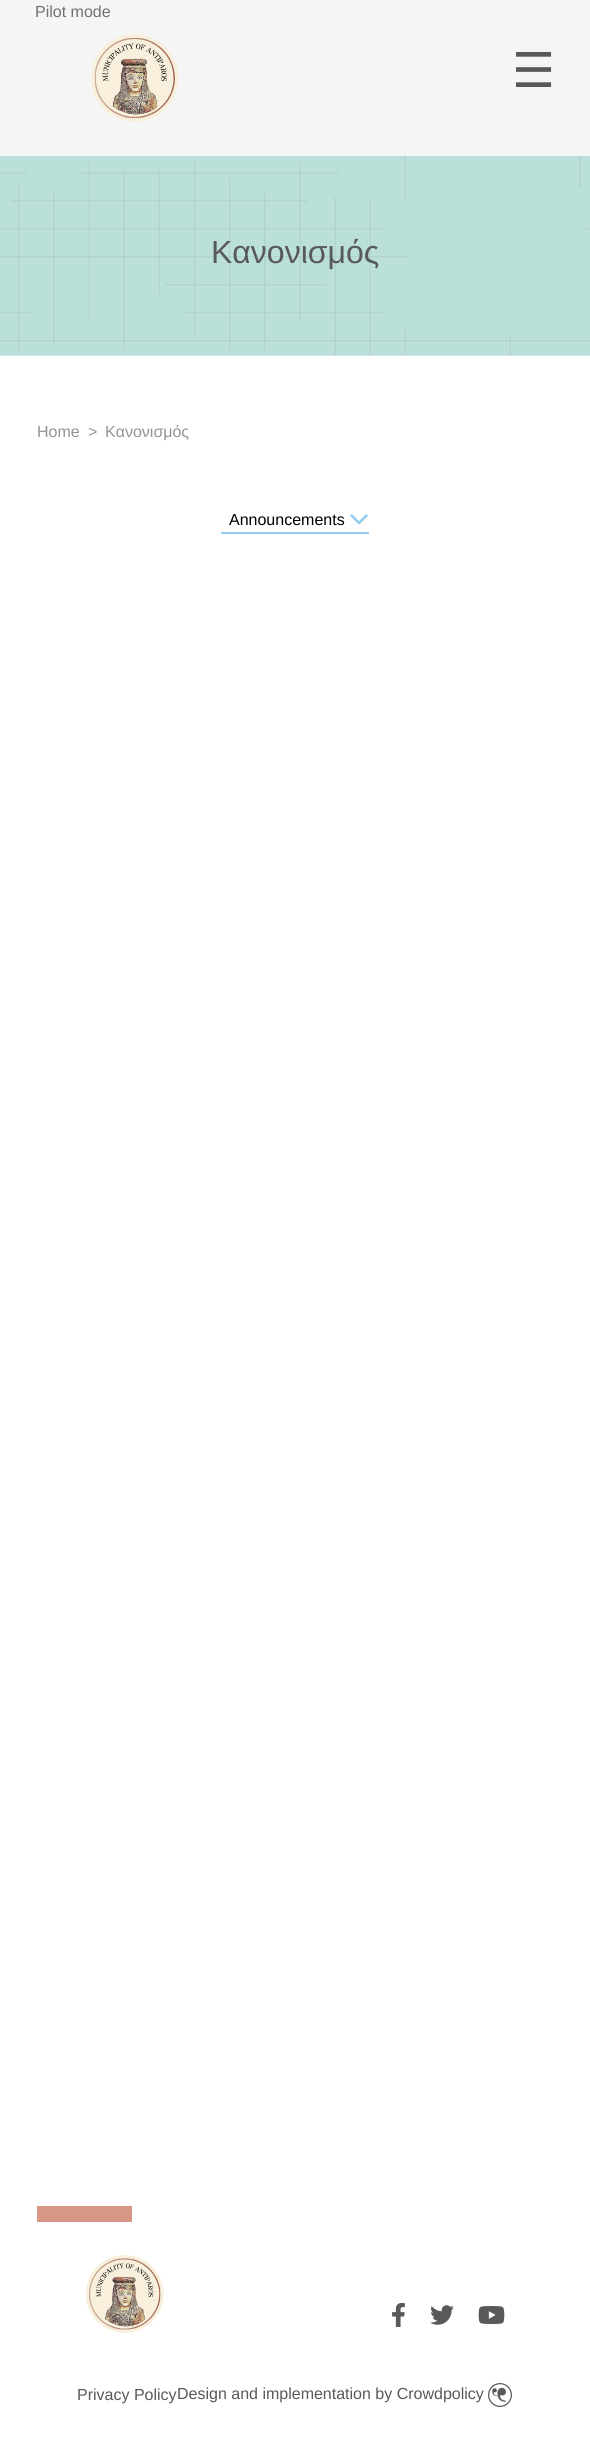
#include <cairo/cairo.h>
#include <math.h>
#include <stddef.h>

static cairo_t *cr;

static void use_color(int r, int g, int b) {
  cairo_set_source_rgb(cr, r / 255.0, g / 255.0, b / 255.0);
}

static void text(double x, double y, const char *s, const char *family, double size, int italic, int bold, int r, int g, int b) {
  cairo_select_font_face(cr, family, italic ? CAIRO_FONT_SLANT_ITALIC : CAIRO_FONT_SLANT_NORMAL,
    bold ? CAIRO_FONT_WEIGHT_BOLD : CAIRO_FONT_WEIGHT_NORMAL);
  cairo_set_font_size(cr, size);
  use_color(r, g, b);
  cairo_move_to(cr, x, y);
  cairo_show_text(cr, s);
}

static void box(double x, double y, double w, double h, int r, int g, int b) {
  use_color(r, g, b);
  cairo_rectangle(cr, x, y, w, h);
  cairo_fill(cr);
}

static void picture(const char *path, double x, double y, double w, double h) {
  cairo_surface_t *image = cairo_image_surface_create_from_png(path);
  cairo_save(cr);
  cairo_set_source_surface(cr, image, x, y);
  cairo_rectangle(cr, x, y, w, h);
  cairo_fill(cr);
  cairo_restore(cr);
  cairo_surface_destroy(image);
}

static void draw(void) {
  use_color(255, 255, 255);
  cairo_paint(cr);
  box(0, 0, 590, 156, 245, 245, 245);
  picture("img_01.png", 91, 34, 88, 88);
  picture("img_02.png", 0, 156, 590, 200);
  picture("img_03.png", 350, 514, 18, 11);
  box(221, 532, 148, 2, 147, 204, 242);
  box(37, 2206, 95, 16, 216, 150, 133);
  picture("img_04.png", 85, 2255, 79, 78);
  picture("img_05.png", 392, 2303, 13, 24);
  picture("img_06.png", 430, 2305, 24, 20);
  picture("img_07.png", 478, 2306, 27, 18);
  picture("img_08.png", 488, 2383, 24, 24);
  text(35, 17, "Pilot mode", "Arimo", 16, 0, 0, 112, 112, 112);
  text(512, 87, "☰", "DejaVu Sans", 48, 0, 0, 88, 89, 91);
  text(211, 263, "Κανονισμός", "Arimo", 32, 0, 0, 88, 89, 91);
  text(37, 437, "Home", "Arimo", 16, 0, 0, 147, 147, 147);
  text(88, 437, ">", "Arimo", 16, 0, 0, 147, 147, 147);
  text(105, 437, "Κανονισμός", "Arimo", 16, 0, 0, 147, 147, 147);
  text(229, 525, "Announcements", "Arimo", 16, 0, 0, 0, 0, 0);
  text(77, 2400, "Privacy Policy", "Arimo", 16, 0, 0, 88, 89, 91);
  text(177, 2399, "Design and implementation by Crowdpolicy", "Arimo", 16, 0, 0, 88, 89, 91);
}

int main(void) {
  cairo_surface_t *surface = cairo_image_surface_create(CAIRO_FORMAT_RGB24, 590, 2439);
  cr = cairo_create(surface);
  cairo_font_options_t *options = cairo_font_options_create();
  cairo_font_options_set_hint_metrics(options, CAIRO_HINT_METRICS_OFF);
  cairo_font_options_set_hint_style(options, CAIRO_HINT_STYLE_NONE);
  cairo_set_font_options(cr, options);
  cairo_set_miter_limit(cr, 4);
  draw();
  cairo_surface_write_to_png(surface, "out.png");
  cairo_font_options_destroy(options);
  cairo_destroy(cr);
  cairo_surface_destroy(surface);
  return 0;
}
